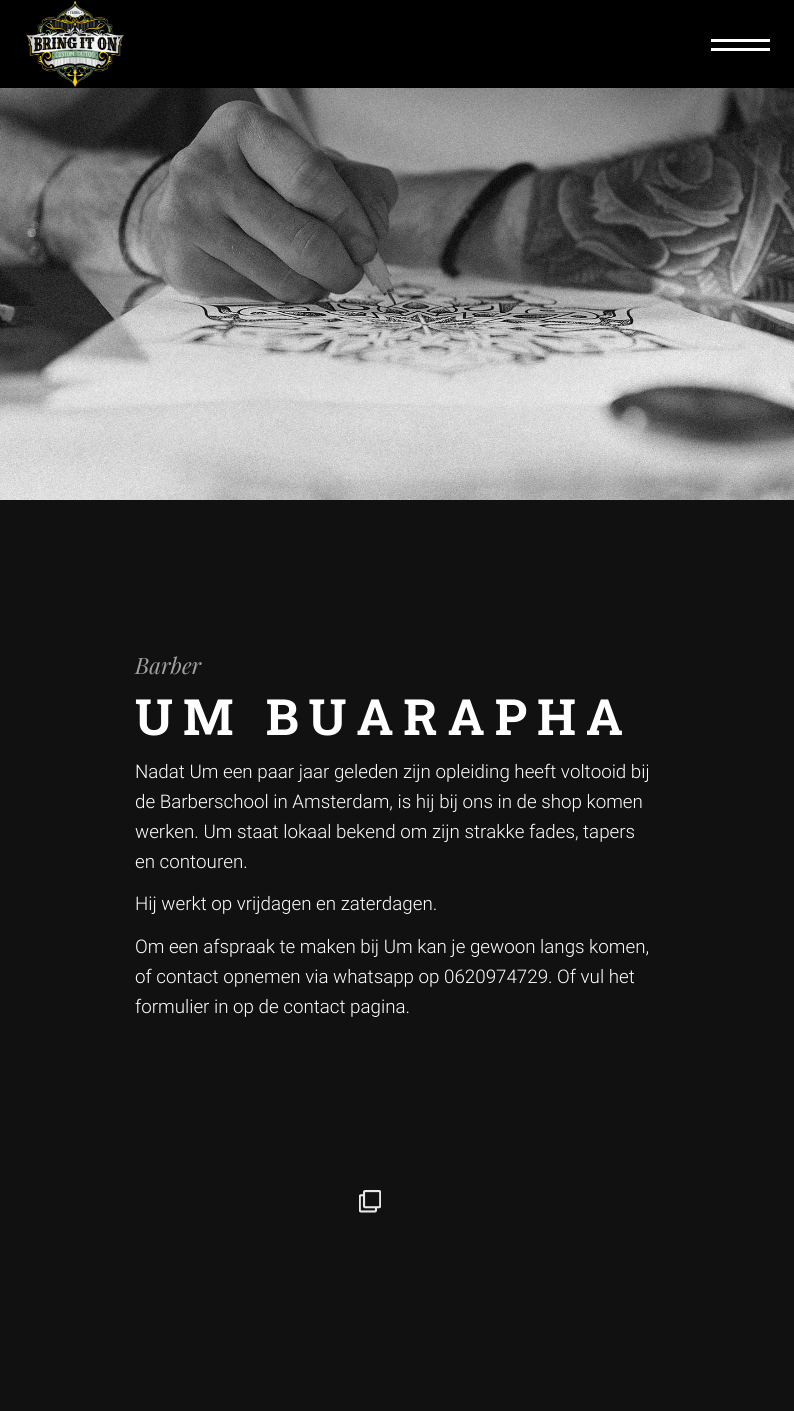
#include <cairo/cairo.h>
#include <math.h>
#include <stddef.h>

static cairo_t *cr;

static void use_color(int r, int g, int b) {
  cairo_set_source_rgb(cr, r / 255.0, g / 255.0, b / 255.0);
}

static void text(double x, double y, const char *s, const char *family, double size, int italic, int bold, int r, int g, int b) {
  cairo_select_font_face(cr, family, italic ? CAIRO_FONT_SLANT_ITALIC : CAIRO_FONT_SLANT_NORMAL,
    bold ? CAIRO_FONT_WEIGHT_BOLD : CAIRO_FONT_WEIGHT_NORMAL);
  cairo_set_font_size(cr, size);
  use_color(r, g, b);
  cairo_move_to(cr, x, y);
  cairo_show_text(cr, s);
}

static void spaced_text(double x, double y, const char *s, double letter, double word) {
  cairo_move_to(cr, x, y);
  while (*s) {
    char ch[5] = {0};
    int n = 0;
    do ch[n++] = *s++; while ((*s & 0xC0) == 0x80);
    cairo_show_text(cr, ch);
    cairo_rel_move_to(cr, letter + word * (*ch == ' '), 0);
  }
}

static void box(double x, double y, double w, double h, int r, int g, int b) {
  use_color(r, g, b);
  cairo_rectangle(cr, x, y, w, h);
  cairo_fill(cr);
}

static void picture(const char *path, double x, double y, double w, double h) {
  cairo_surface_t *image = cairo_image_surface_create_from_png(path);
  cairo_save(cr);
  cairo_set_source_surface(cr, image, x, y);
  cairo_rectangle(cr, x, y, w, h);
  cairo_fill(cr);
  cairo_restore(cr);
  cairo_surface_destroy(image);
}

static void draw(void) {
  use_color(17, 17, 17);
  cairo_paint(cr);
  box(0, 0, 794, 88, 0, 0, 0);
  picture("img_01.png", 26, 0, 98, 87);
  box(711, 39, 59, 3, 255, 255, 255);
  box(711, 48, 59, 3, 255, 255, 255);
  picture("img_02.png", 0, 88, 794, 412);
  picture("img_03.png", 359, 1190, 22, 23);
  text(135, 674, "Barber", "Playfair Display", 22.5, 1, 0, 162, 162, 162);
  cairo_select_font_face(cr, "Roboto Slab", CAIRO_FONT_SLANT_NORMAL, CAIRO_FONT_WEIGHT_BOLD);
  cairo_set_font_size(cr, 50);
  use_color(255, 255, 255);
  spaced_text(135, 735, "UM BUARAPHA", 10, 0);
  text(135, 778, "Nadat Um een paar jaar geleden zijn opleiding heeft voltooid bij", "Roboto Light", 18.75, 0, 0, 255, 255, 255);
  text(135, 808, "de Barberschool in Amsterdam, is hij bij ons in de shop komen", "Roboto Light", 18.75, 0, 0, 255, 255, 255);
  text(135, 838, "werken. Um staat lokaal bekend om zijn strakke fades, tapers", "Roboto Light", 18.75, 0, 0, 255, 255, 255);
  text(135, 868, "en contouren.", "Roboto Light", 18.75, 0, 0, 255, 255, 255);
  text(135, 910, "Hij werkt op vrijdagen en zaterdagen.", "Roboto Light", 18.75, 0, 0, 255, 255, 255);
  text(135, 953, "Om een afspraak te maken bij Um kan je gewoon langs komen,", "Roboto Light", 18.75, 0, 0, 255, 255, 255);
  text(135, 983, "of contact opnemen via whatsapp op 0620974729. Of vul het", "Roboto Light", 18.75, 0, 0, 255, 255, 255);
  text(135, 1013, "formulier in op de contact pagina.", "Roboto Light", 18.75, 0, 0, 255, 255, 255);
}

int main(void) {
  cairo_surface_t *surface = cairo_image_surface_create(CAIRO_FORMAT_RGB24, 794, 1411);
  cr = cairo_create(surface);
  cairo_font_options_t *options = cairo_font_options_create();
  cairo_font_options_set_hint_metrics(options, CAIRO_HINT_METRICS_OFF);
  cairo_font_options_set_hint_style(options, CAIRO_HINT_STYLE_NONE);
  cairo_set_font_options(cr, options);
  cairo_set_miter_limit(cr, 4);
  draw();
  cairo_surface_write_to_png(surface, "out.png");
  cairo_font_options_destroy(options);
  cairo_destroy(cr);
  cairo_surface_destroy(surface);
  return 0;
}
